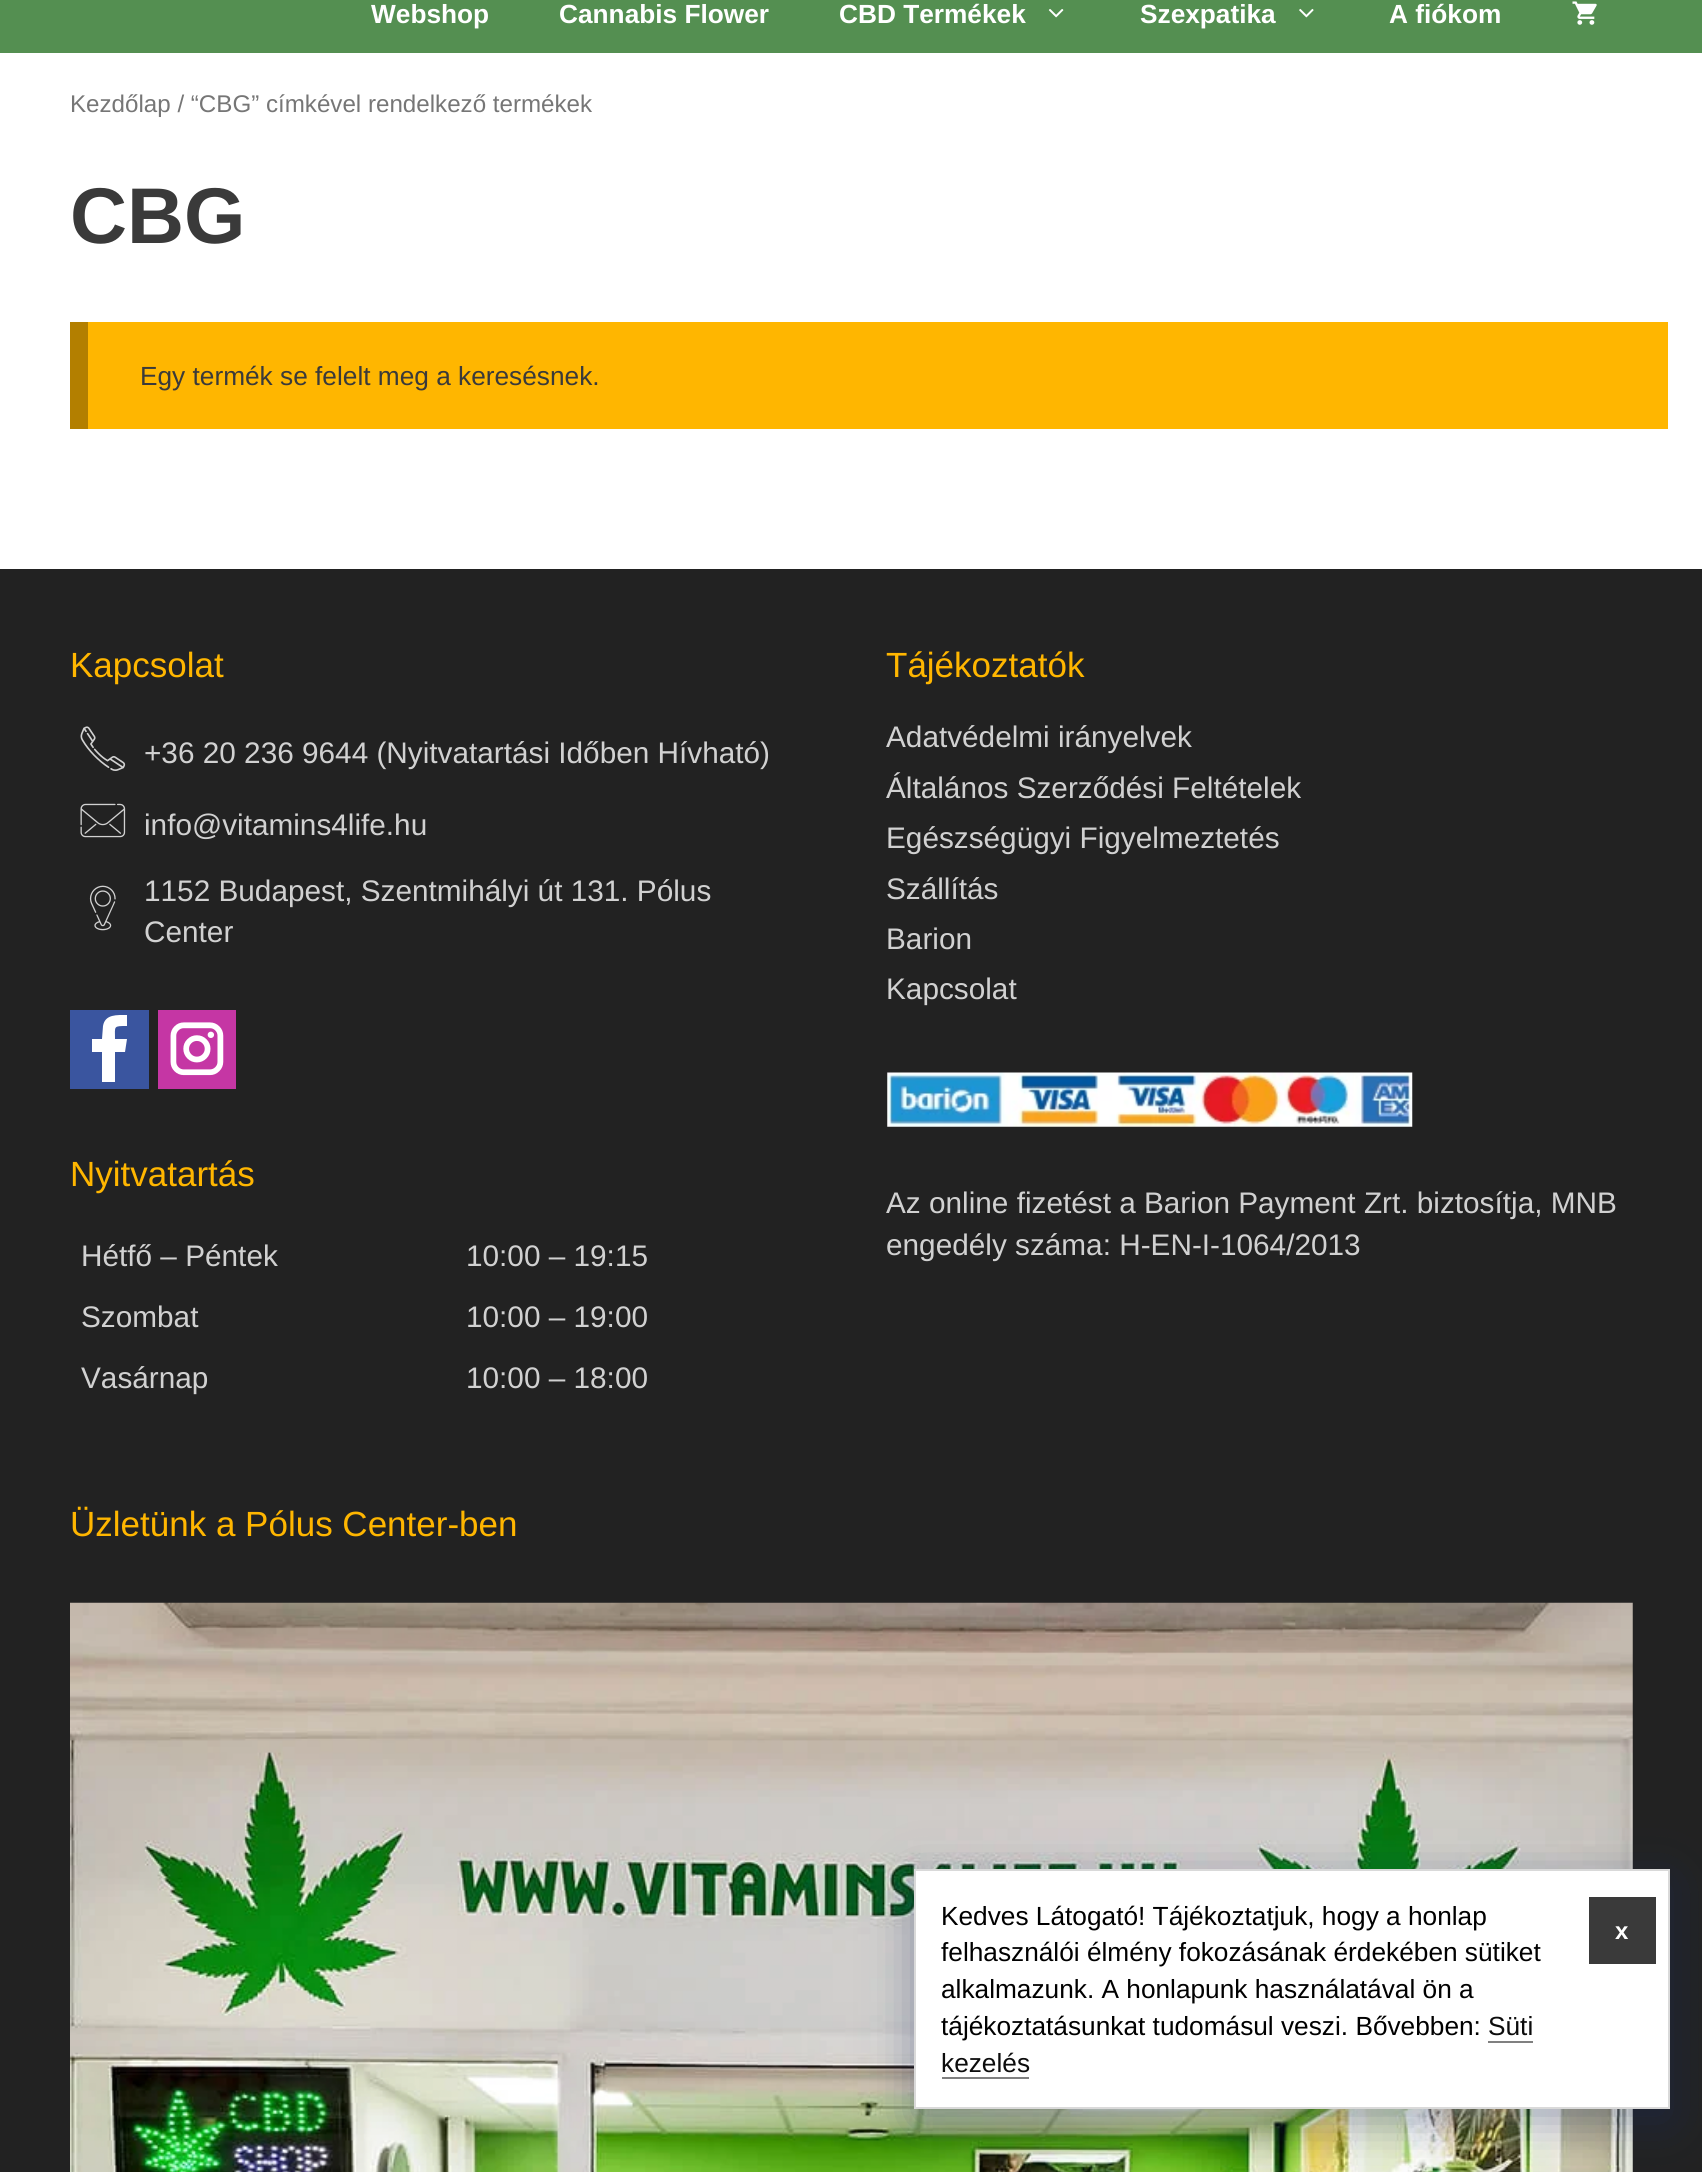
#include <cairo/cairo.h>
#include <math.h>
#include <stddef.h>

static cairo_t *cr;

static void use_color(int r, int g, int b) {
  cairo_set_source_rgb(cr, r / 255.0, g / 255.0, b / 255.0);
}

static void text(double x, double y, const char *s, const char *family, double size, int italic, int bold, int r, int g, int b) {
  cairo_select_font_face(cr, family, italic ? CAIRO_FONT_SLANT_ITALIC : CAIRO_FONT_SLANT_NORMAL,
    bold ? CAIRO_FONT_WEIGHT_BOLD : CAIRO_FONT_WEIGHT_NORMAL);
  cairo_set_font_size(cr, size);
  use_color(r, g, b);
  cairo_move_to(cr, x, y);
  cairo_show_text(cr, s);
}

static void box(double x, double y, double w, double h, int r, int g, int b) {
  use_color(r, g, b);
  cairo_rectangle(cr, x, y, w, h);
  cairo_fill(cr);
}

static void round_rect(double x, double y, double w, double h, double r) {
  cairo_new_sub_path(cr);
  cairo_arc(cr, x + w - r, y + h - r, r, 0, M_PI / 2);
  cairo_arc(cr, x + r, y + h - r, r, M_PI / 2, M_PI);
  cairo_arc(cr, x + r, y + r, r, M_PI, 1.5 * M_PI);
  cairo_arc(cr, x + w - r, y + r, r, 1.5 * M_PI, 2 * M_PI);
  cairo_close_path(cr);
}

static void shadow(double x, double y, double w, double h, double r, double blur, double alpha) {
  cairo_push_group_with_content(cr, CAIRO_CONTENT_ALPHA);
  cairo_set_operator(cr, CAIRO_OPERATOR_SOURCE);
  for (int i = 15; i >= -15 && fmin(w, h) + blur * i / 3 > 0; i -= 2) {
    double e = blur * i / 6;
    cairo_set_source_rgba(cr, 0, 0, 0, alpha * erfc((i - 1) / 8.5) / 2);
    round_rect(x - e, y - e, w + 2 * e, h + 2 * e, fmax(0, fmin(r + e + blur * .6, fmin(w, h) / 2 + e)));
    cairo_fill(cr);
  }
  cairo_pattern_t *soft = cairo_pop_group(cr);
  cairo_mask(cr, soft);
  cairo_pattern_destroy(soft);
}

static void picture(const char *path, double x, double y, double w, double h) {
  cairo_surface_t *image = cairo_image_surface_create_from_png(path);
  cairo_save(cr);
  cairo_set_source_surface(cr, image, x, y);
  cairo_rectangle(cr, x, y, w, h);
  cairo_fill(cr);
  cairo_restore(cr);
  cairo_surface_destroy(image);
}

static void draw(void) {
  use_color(255, 255, 255);
  cairo_paint(cr);
  box(0, 0, 1702, 53, 84, 143, 81);
  picture("img_01.png", 1048, 9, 16, 9);
  picture("img_02.png", 1299, 8, 15, 10);
  picture("img_03.png", 1572, 1, 25, 24);
  box(88, 322, 1580, 107, 255, 182, 0);
  box(70, 322, 18, 107, 179, 127, 0);
  box(0, 569, 1702, 1603, 34, 34, 34);
  picture("img_04.png", 80, 726, 46, 45);
  picture("img_05.png", 80, 803, 46, 35);
  picture("img_06.png", 89, 885, 27, 46);
  box(70, 1010, 79, 79, 58, 85, 159);
  box(158, 1010, 78, 79, 197, 54, 164);
  use_color(255, 255, 255);
  cairo_new_path(cr);
  cairo_move_to(cr, 115, 1052);
  cairo_line_to(cr, 115, 1082);
  cairo_line_to(cr, 102, 1082);
  cairo_line_to(cr, 102, 1052);
  cairo_line_to(cr, 92, 1052);
  cairo_line_to(cr, 92, 1039);
  cairo_line_to(cr, 102, 1039);
  cairo_line_to(cr, 103, 1026);
  cairo_curve_to(cr, 105, 1014, 117, 1015, 127, 1015);
  cairo_line_to(cr, 127, 1026);
  cairo_curve_to(cr, 113, 1026, 115, 1026, 115, 1039);
  cairo_line_to(cr, 127, 1039);
  cairo_line_to(cr, 125, 1052);
  cairo_close_path(cr);
  cairo_fill(cr);
  picture("img_07.png", 170, 1022, 54, 54);
  picture("img_08.png", 887, 1072, 526, 55);
  picture("img_09.png", 70, 1602, 1563, 570);
  use_color(23, 43, 99);
  shadow(914, 1881, 756, 240, 0, 24.5, 0.4);
  use_color(255, 255, 255);
  cairo_rectangle(cr, 915, 1870, 754, 238);
  cairo_fill_preserve(cr);
  use_color(217, 217, 217);
  cairo_stroke(cr);
  box(1488, 2041, 45, 2, 128, 128, 128);
  box(942, 2077, 87, 2, 128, 128, 128);
  box(1589, 1897, 67, 67, 58, 58, 58);
  text(371, 23, "Webshop", "Liberation Sans", 26.25, 0, 1, 255, 255, 255);
  text(559, 23, "Cannabis Flower", "Liberation Sans", 26.25, 0, 1, 255, 255, 255);
  text(839, 23, "CBD Termékek", "Liberation Sans", 26.25, 0, 1, 255, 255, 255);
  text(1140, 23, "Szexpatika", "Liberation Sans", 26.25, 0, 1, 255, 255, 255);
  text(1389, 23, "A fiókom", "Liberation Sans", 26.25, 0, 1, 255, 255, 255);
  text(70, 112, "Kezdőlap / “CBG” címkével rendelkező termékek", "Liberation Sans", 24.15, 0, 0, 118, 118, 118);
  text(70, 243, "CBG", "Liberation Sans", 79, 0, 1, 58, 58, 58);
  text(140, 385, "Egy termék se felelt meg a keresésnek.", "Liberation Sans", 26.25, 0, 0, 58, 58, 58);
  text(70, 677, "Kapcsolat", "Liberation Sans", 35, 0, 0, 255, 182, 0);
  text(144, 763, "+36 20 236 9644 (Nyitvatartási Időben Hívható)", "Liberation Sans", 29.75, 0, 0, 209, 209, 209);
  text(144, 835, "info@vitamins4life.hu", "Liberation Sans", 29.75, 0, 0, 209, 209, 209);
  text(144, 901, "1152 Budapest, Szentmihályi út 131. Pólus", "Liberation Sans", 29.75, 0, 0, 209, 209, 209);
  text(144, 942, "Center", "Liberation Sans", 29.75, 0, 0, 209, 209, 209);
  text(70, 1186, "Nyitvatartás", "Liberation Sans", 35, 0, 0, 255, 182, 0);
  text(81, 1266, "Hétfő – Péntek", "Liberation Sans", 29.75, 0, 0, 209, 209, 209);
  text(466, 1266, "10:00 – 19:15", "Liberation Sans", 29.75, 0, 0, 209, 209, 209);
  text(81, 1327, "Szombat", "Liberation Sans", 29.75, 0, 0, 209, 209, 209);
  text(466, 1327, "10:00 – 19:00", "Liberation Sans", 29.75, 0, 0, 209, 209, 209);
  text(81, 1388, "Vasárnap", "Liberation Sans", 29.75, 0, 0, 209, 209, 209);
  text(466, 1388, "10:00 – 18:00", "Liberation Sans", 29.75, 0, 0, 209, 209, 209);
  text(886, 677, "Tájékoztatók", "Liberation Sans", 35, 0, 0, 255, 182, 0);
  text(886, 747, "Adatvédelmi irányelvek", "Liberation Sans", 29.75, 0, 0, 209, 209, 209);
  text(886, 798, "Általános Szerződési Feltételek", "Liberation Sans", 29.75, 0, 0, 209, 209, 209);
  text(886, 848, "Egészségügyi Figyelmeztetés", "Liberation Sans", 29.75, 0, 0, 209, 209, 209);
  text(886, 899, "Szállítás", "Liberation Sans", 29.75, 0, 0, 209, 209, 209);
  text(886, 949, "Barion", "Liberation Sans", 29.75, 0, 0, 209, 209, 209);
  text(886, 999, "Kapcsolat", "Liberation Sans", 29.75, 0, 0, 209, 209, 209);
  text(886, 1213, "Az online fizetést a Barion Payment Zrt. biztosítja, MNB", "Liberation Sans", 29.75, 0, 0, 209, 209, 209);
  text(886, 1255, "engedély száma: H-EN-I-1064/2013", "Liberation Sans", 29.75, 0, 0, 209, 209, 209);
  text(70, 1536, "Üzletünk a Pólus Center-ben", "Liberation Sans", 35, 0, 0, 255, 182, 0);
  text(941, 1925, "Kedves Látogató! Tájékoztatjuk, hogy a honlap", "Liberation Sans", 26.25, 0, 0, 0, 0, 0);
  text(941, 1961, "felhasználói élmény fokozásának érdekében sütiket", "Liberation Sans", 26.25, 0, 0, 0, 0, 0);
  text(941, 1998, "alkalmazunk. A honlapunk használatával ön a", "Liberation Sans", 26.25, 0, 0, 0, 0, 0);
  text(941, 2035, "tájékoztatásunkat tudomásul veszi. Bővebben:", "Liberation Sans", 26.25, 0, 0, 0, 0, 0);
  text(1488, 2035, "Süti", "Liberation Sans", 26.25, 0, 0, 12, 12, 12);
  text(941, 2072, "kezelés", "Liberation Sans", 26.25, 0, 0, 12, 12, 12);
  text(1615, 1939, "x", "Liberation Sans", 24, 0, 1, 255, 255, 255);
}

int main(void) {
  cairo_surface_t *surface = cairo_image_surface_create(CAIRO_FORMAT_RGB24, 1702, 2172);
  cr = cairo_create(surface);
  cairo_font_options_t *options = cairo_font_options_create();
  cairo_font_options_set_hint_metrics(options, CAIRO_HINT_METRICS_OFF);
  cairo_font_options_set_hint_style(options, CAIRO_HINT_STYLE_NONE);
  cairo_set_font_options(cr, options);
  cairo_set_miter_limit(cr, 4);
  draw();
  cairo_surface_write_to_png(surface, "out.png");
  cairo_font_options_destroy(options);
  cairo_destroy(cr);
  cairo_surface_destroy(surface);
  return 0;
}
